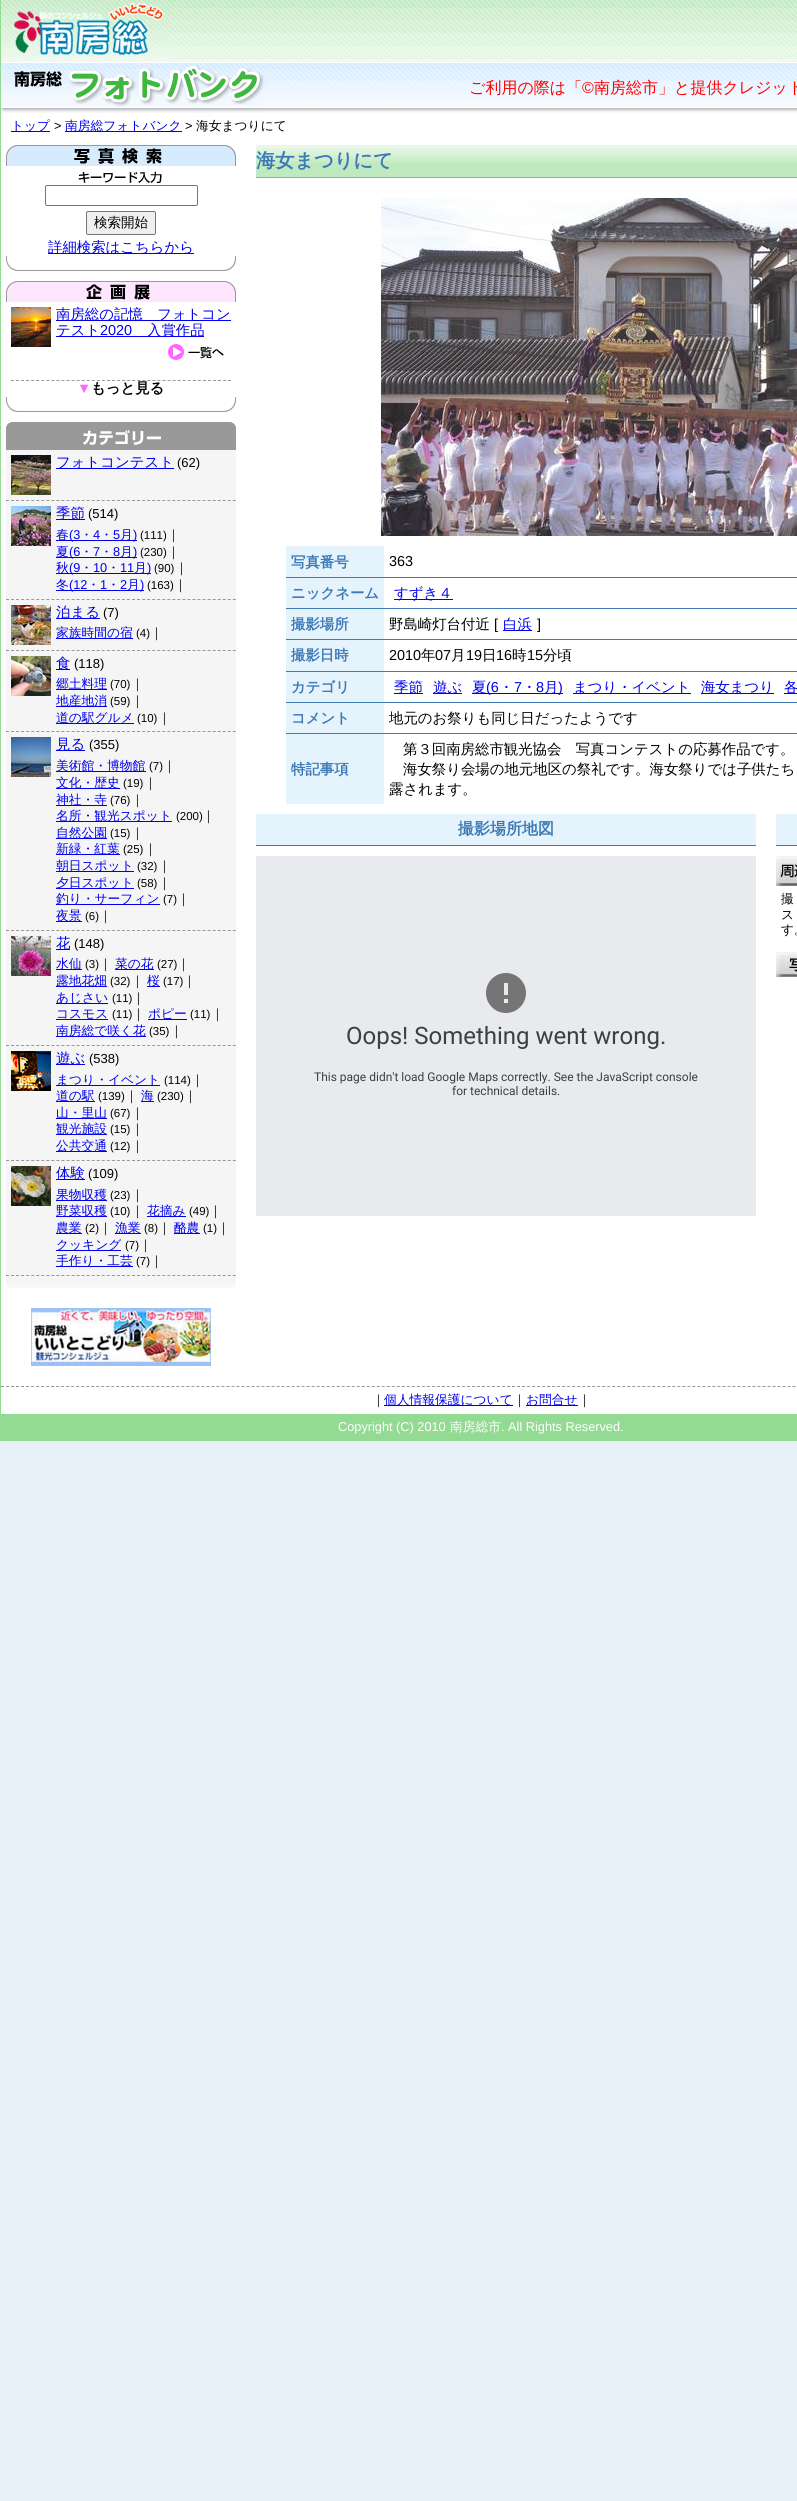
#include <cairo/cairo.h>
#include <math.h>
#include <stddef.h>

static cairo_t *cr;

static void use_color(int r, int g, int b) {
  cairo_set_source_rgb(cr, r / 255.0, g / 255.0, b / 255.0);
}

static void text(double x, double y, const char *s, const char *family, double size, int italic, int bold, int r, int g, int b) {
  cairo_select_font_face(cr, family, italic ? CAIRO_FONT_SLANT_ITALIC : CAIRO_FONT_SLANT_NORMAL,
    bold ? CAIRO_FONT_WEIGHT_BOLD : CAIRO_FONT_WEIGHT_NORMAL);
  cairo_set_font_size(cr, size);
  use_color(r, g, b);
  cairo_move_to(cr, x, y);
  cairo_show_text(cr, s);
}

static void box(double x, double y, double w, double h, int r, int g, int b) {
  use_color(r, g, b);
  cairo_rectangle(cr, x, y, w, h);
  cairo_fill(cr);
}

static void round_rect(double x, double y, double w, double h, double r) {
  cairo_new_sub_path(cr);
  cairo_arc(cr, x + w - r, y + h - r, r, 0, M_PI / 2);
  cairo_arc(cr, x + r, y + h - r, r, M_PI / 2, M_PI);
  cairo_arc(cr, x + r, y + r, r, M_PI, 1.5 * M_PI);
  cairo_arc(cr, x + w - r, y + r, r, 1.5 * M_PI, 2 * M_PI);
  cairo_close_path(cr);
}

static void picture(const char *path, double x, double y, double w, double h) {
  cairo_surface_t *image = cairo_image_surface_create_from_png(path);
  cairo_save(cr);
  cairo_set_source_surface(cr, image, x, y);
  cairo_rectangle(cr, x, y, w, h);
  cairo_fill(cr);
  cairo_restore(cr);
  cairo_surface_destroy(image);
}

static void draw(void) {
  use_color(230, 240, 249);
  cairo_paint(cr);
  box(1, 113, 796, 1301, 255, 255, 255);
  box(0, 0, 1, 1441, 147, 219, 147);
  picture("img_01.png", 171, 0, 626, 62);
  box(1, 62, 796, 1, 255, 255, 255);
  picture("img_02.png", 1, 0, 170, 62);
  picture("img_03.png", 266, 63, 531, 50);
  picture("img_04.png", 1, 63, 265, 50);
  box(11, 131, 39, 1, 0, 0, 238);
  box(65, 131, 117, 1, 0, 0, 238);
  picture("img_05.png", 6, 145, 230, 21);
  picture("img_06.png", 78, 171, 84, 12);
  round_rect(45.5, 185.5, 152, 20, 1.5);
  use_color(118, 118, 118);
  cairo_set_line_width(cr, 1);
  cairo_stroke(cr);
  use_color(239, 239, 239);
  round_rect(86.5, 211.5, 69, 23, 1.5);
  cairo_fill_preserve(cr);
  use_color(118, 118, 118);
  cairo_stroke(cr);
  box(48, 253, 146, 1, 0, 0, 238);
  picture("img_07.png", 6, 256, 230, 15);
  picture("img_08.png", 6, 281, 230, 21);
  cairo_new_path(cr);
  cairo_move_to(cr, 11, 380.5);
  cairo_line_to(cr, 231, 380.5);
  use_color(153, 153, 153);
  cairo_set_dash(cr, (double[]){3, 2.05}, 2, 0);
  cairo_stroke(cr);
  picture("img_09.png", 11, 307, 40, 40);
  box(56, 320, 175, 1, 0, 0, 238);
  box(56, 336, 148, 1, 0, 0, 238);
  picture("img_10.png", 168, 344, 56, 16);
  picture("img_07.png", 6, 397, 230, 15);
  box(6, 450, 230, 834, 245, 245, 245);
  picture("img_11.png", 6, 422, 230, 28);
  cairo_new_path(cr);
  cairo_move_to(cr, 6, 500.5);
  cairo_line_to(cr, 236, 500.5);
  use_color(153, 153, 153);
  cairo_set_dash(cr, (double[]){3, 2.04}, 2, 0);
  cairo_stroke(cr);
  picture("img_12.png", 11, 455, 40, 40);
  box(56, 468, 118, 1, 0, 0, 238);
  cairo_new_path(cr);
  cairo_move_to(cr, 6, 599.5);
  cairo_line_to(cr, 236, 599.5);
  use_color(153, 153, 153);
  cairo_stroke(cr);
  picture("img_13.png", 11, 506, 40, 40);
  box(56, 519, 29, 1, 0, 0, 238);
  box(56, 540, 81, 1, 0, 0, 238);
  box(56, 557, 81, 1, 0, 0, 238);
  box(56, 573, 95, 1, 0, 0, 238);
  box(56, 590, 88, 1, 0, 0, 238);
  cairo_new_path(cr);
  cairo_move_to(cr, 6, 650.5);
  cairo_line_to(cr, 236, 650.5);
  use_color(153, 153, 153);
  cairo_stroke(cr);
  picture("img_14.png", 11, 605, 40, 40);
  box(56, 618, 44, 1, 0, 0, 238);
  box(56, 638, 77, 1, 0, 0, 238);
  cairo_new_path(cr);
  cairo_move_to(cr, 6, 731.5);
  cairo_line_to(cr, 236, 731.5);
  use_color(153, 153, 153);
  cairo_stroke(cr);
  picture("img_15.png", 11, 656, 40, 40);
  box(56, 669, 14, 1, 0, 0, 238);
  box(56, 689, 51, 1, 0, 0, 238);
  box(56, 706, 51, 1, 0, 0, 238);
  box(56, 723, 78, 1, 0, 0, 238);
  cairo_new_path(cr);
  cairo_move_to(cr, 6, 930.5);
  cairo_line_to(cr, 236, 930.5);
  use_color(153, 153, 153);
  cairo_stroke(cr);
  picture("img_16.png", 11, 737, 40, 40);
  box(56, 750, 29, 1, 0, 0, 238);
  box(56, 771, 90, 1, 0, 0, 238);
  box(56, 788, 64, 1, 0, 0, 238);
  box(56, 805, 51, 1, 0, 0, 238);
  box(56, 821, 116, 1, 0, 0, 238);
  box(56, 838, 51, 1, 0, 0, 238);
  box(56, 854, 64, 1, 0, 0, 238);
  box(56, 871, 78, 1, 0, 0, 238);
  box(56, 888, 78, 1, 0, 0, 238);
  box(56, 904, 104, 1, 0, 0, 238);
  box(56, 921, 26, 1, 0, 0, 238);
  cairo_new_path(cr);
  cairo_move_to(cr, 6, 1045.5);
  cairo_line_to(cr, 236, 1045.5);
  use_color(153, 153, 153);
  cairo_stroke(cr);
  picture("img_17.png", 11, 936, 40, 40);
  box(56, 949, 14, 1, 0, 0, 238);
  box(56, 969, 26, 1, 0, 0, 238);
  box(115, 969, 39, 1, 0, 0, 238);
  box(56, 986, 51, 1, 0, 0, 238);
  box(147, 986, 13, 1, 0, 0, 238);
  box(56, 1003, 52, 1, 0, 0, 238);
  box(56, 1019, 52, 1, 0, 0, 238);
  box(148, 1019, 39, 1, 0, 0, 238);
  box(56, 1036, 90, 1, 0, 0, 238);
  cairo_new_path(cr);
  cairo_move_to(cr, 6, 1160.5);
  cairo_line_to(cr, 236, 1160.5);
  use_color(153, 153, 153);
  cairo_stroke(cr);
  picture("img_18.png", 11, 1051, 40, 40);
  box(56, 1064, 29, 1, 0, 0, 238);
  box(56, 1085, 104, 1, 0, 0, 238);
  box(56, 1101, 39, 1, 0, 0, 238);
  box(141, 1101, 13, 1, 0, 0, 238);
  box(56, 1118, 51, 1, 0, 0, 238);
  box(56, 1134, 51, 1, 0, 0, 238);
  box(56, 1151, 51, 1, 0, 0, 238);
  cairo_new_path(cr);
  cairo_move_to(cr, 6, 1275.5);
  cairo_line_to(cr, 236, 1275.5);
  use_color(153, 153, 153);
  cairo_stroke(cr);
  picture("img_19.png", 11, 1166, 40, 40);
  box(56, 1179, 29, 1, 0, 0, 238);
  box(56, 1200, 51, 1, 0, 0, 238);
  box(56, 1216, 51, 1, 0, 0, 238);
  box(147, 1216, 39, 1, 0, 0, 238);
  box(56, 1233, 26, 1, 0, 0, 238);
  box(115, 1233, 26, 1, 0, 0, 238);
  box(174, 1233, 26, 1, 0, 0, 238);
  box(56, 1250, 65, 1, 0, 0, 238);
  box(56, 1266, 77, 1, 0, 0, 238);
  picture("img_20.png", 6, 1284, 230, 4);
  picture("img_21.png", 31, 1308, 180, 58);
  box(256, 163, 541, 14, 191, 234, 191);
  picture("img_22.png", 256, 145, 541, 18);
  box(256, 177, 541, 1, 108, 206, 108);
  picture("img_23.png", 381, 198, 416, 338);
  box(286, 546, 98, 31, 228, 243, 252);
  box(286, 577, 511, 1, 61, 121, 182);
  box(286, 578, 98, 30, 228, 243, 252);
  box(286, 608, 511, 1, 61, 121, 182);
  box(394, 599, 59, 1, 0, 0, 238);
  box(286, 609, 98, 30, 228, 243, 252);
  box(286, 639, 511, 1, 61, 121, 182);
  box(503, 630, 29, 1, 0, 0, 238);
  box(286, 640, 98, 31, 228, 243, 252);
  box(286, 671, 511, 1, 61, 121, 182);
  box(286, 672, 98, 30, 228, 243, 252);
  box(286, 702, 511, 1, 61, 121, 182);
  box(394, 693, 29, 1, 0, 0, 238);
  box(433, 693, 29, 1, 0, 0, 238);
  box(472, 693, 91, 1, 0, 0, 238);
  box(573, 693, 118, 1, 0, 0, 238);
  box(701, 693, 73, 1, 0, 0, 238);
  box(784, 693, 13, 1, 0, 0, 238);
  box(286, 703, 98, 30, 228, 243, 252);
  box(286, 733, 511, 1, 61, 121, 182);
  box(286, 734, 98, 70, 228, 243, 252);
  box(256, 814, 500, 31, 228, 243, 252);
  box(256, 845, 500, 1, 61, 121, 182);
  box(256, 856, 500, 360, 232, 234, 237);
  picture("img_24.png", 486, 973, 40, 40);
  box(776, 814, 21, 31, 228, 243, 252);
  box(776, 845, 21, 1, 61, 121, 182);
  picture("img_25.png", 776, 856, 21, 30);
  picture("img_26.png", 776, 952, 21, 25);
  cairo_new_path(cr);
  cairo_move_to(cr, 1, 1386.5);
  cairo_line_to(cr, 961, 1386.5);
  use_color(153, 153, 153);
  cairo_set_dash(cr, (double[]){3, 2.01}, 2, 0);
  cairo_stroke(cr);
  box(384, 1405, 129, 1, 0, 0, 238);
  box(526, 1405, 52, 1, 0, 0, 238);
  box(1, 1414, 796, 27, 147, 219, 147);
  text(469, 93, "ご利用の際は「", "WenQuanYi Zen Hei Medium", 16, 0, 0, 255, 0, 0);
  text(582, 93, "©", "Liberation Sans", 16, 0, 0, 255, 0, 0);
  text(594, 93, "南房総市」と提供クレジット", "WenQuanYi Zen Hei Medium", 16, 0, 0, 255, 0, 0);
  text(11, 130, "トップ", "WenQuanYi Zen Hei Medium", 12.75, 0, 0, 0, 0, 238);
  text(54, 130, ">", "Liberation Sans", 12.75, 0, 0, 0, 0, 0);
  text(65, 130, "南房総フォトバンク", "WenQuanYi Zen Hei Medium", 12.75, 0, 0, 0, 0, 238);
  text(185, 130, ">", "Liberation Sans", 12.75, 0, 0, 0, 0, 0);
  text(196, 130, "海女まつりにて", "WenQuanYi Zen Hei Medium", 12.75, 0, 0, 0, 0, 0);
  text(94, 227, "検索開始", "WenQuanYi Zen Hei Medium", 13.5, 0, 0, 0, 0, 0);
  text(48, 252, "詳細検索はこちらから", "WenQuanYi Zen Hei Medium", 14.4, 0, 0, 0, 0, 238);
  text(56, 319, "南房総の記憶　フォトコン", "WenQuanYi Zen Hei Medium", 14.4, 0, 0, 0, 0, 238);
  text(56, 335, "テスト", "WenQuanYi Zen Hei Medium", 14.4, 0, 0, 0, 0, 238);
  text(100, 335, "2020", "Liberation Sans", 14.4, 0, 0, 0, 0, 238);
  text(147, 335, "入賞作品", "WenQuanYi Zen Hei Medium", 14.4, 0, 0, 0, 0, 238);
  text(77, 393, "▼", "Liberation Sans", 14.4, 0, 1, 255, 102, 255);
  text(91, 393, "もっと見る", "WenQuanYi Zen Hei", 14.4, 0, 1, 0, 0, 0);
  text(56, 467, "フォトコンテスト", "WenQuanYi Zen Hei Medium", 14.4, 0, 0, 0, 0, 238);
  text(177, 467, "(62)", "Liberation Sans", 13, 0, 0, 0, 0, 0);
  text(56, 518, "季節", "WenQuanYi Zen Hei Medium", 14.4, 0, 0, 0, 0, 238);
  text(88, 518, "(514)", "Liberation Sans", 13, 0, 0, 0, 0, 0);
  text(56, 539, "春", "WenQuanYi Zen Hei Medium", 12.75, 0, 0, 0, 0, 238);
  text(69, 539, "(3", "Liberation Sans", 12.75, 0, 0, 0, 0, 238);
  text(80, 539, "・", "WenQuanYi Zen Hei Medium", 12.75, 0, 0, 0, 0, 238);
  text(93, 539, "4", "Liberation Sans", 12.75, 0, 0, 0, 0, 238);
  text(100, 539, "・", "WenQuanYi Zen Hei Medium", 12.75, 0, 0, 0, 0, 238);
  text(113, 539, "5", "Liberation Sans", 12.75, 0, 0, 0, 0, 238);
  text(120, 539, "月", "WenQuanYi Zen Hei Medium", 12.75, 0, 0, 0, 0, 238);
  text(133, 539, ")", "Liberation Sans", 12.75, 0, 0, 0, 0, 238);
  text(140, 539, "(111)", "Liberation Sans", 11.5, 0, 0, 0, 0, 0);
  text(167, 539, "｜", "WenQuanYi Zen Hei Medium", 12.75, 0, 0, 0, 0, 0);
  text(56, 556, "夏", "WenQuanYi Zen Hei Medium", 12.75, 0, 0, 0, 0, 238);
  text(69, 556, "(6", "Liberation Sans", 12.75, 0, 0, 0, 0, 238);
  text(80, 556, "・", "WenQuanYi Zen Hei Medium", 12.75, 0, 0, 0, 0, 238);
  text(93, 556, "7", "Liberation Sans", 12.75, 0, 0, 0, 0, 238);
  text(100, 556, "・", "WenQuanYi Zen Hei Medium", 12.75, 0, 0, 0, 0, 238);
  text(113, 556, "8", "Liberation Sans", 12.75, 0, 0, 0, 0, 238);
  text(120, 556, "月", "WenQuanYi Zen Hei Medium", 12.75, 0, 0, 0, 0, 238);
  text(133, 556, ")", "Liberation Sans", 12.75, 0, 0, 0, 0, 238);
  text(140, 556, "(230)", "Liberation Sans", 11.5, 0, 0, 0, 0, 0);
  text(167, 556, "｜", "WenQuanYi Zen Hei Medium", 12.75, 0, 0, 0, 0, 0);
  text(56, 572, "秋", "WenQuanYi Zen Hei Medium", 12.75, 0, 0, 0, 0, 238);
  text(69, 572, "(9", "Liberation Sans", 12.75, 0, 0, 0, 0, 238);
  text(80, 572, "・", "WenQuanYi Zen Hei Medium", 12.75, 0, 0, 0, 0, 238);
  text(93, 572, "10", "Liberation Sans", 12.75, 0, 0, 0, 0, 238);
  text(107, 572, "・", "WenQuanYi Zen Hei Medium", 12.75, 0, 0, 0, 0, 238);
  text(120, 572, "11", "Liberation Sans", 12.75, 0, 0, 0, 0, 238);
  text(134, 572, "月", "WenQuanYi Zen Hei Medium", 12.75, 0, 0, 0, 0, 238);
  text(147, 572, ")", "Liberation Sans", 12.75, 0, 0, 0, 0, 238);
  text(154, 572, "(90)", "Liberation Sans", 11.5, 0, 0, 0, 0, 0);
  text(175, 572, "｜", "WenQuanYi Zen Hei Medium", 12.75, 0, 0, 0, 0, 0);
  text(56, 589, "冬", "WenQuanYi Zen Hei Medium", 12.75, 0, 0, 0, 0, 238);
  text(69, 589, "(12", "Liberation Sans", 12.75, 0, 0, 0, 0, 238);
  text(87, 589, "・", "WenQuanYi Zen Hei Medium", 12.75, 0, 0, 0, 0, 238);
  text(100, 589, "1", "Liberation Sans", 12.75, 0, 0, 0, 0, 238);
  text(107, 589, "・", "WenQuanYi Zen Hei Medium", 12.75, 0, 0, 0, 0, 238);
  text(120, 589, "2", "Liberation Sans", 12.75, 0, 0, 0, 0, 238);
  text(127, 589, "月", "WenQuanYi Zen Hei Medium", 12.75, 0, 0, 0, 0, 238);
  text(140, 589, ")", "Liberation Sans", 12.75, 0, 0, 0, 0, 238);
  text(147, 589, "(163)", "Liberation Sans", 11.5, 0, 0, 0, 0, 0);
  text(174, 589, "｜", "WenQuanYi Zen Hei Medium", 12.75, 0, 0, 0, 0, 0);
  text(56, 617, "泊まる", "WenQuanYi Zen Hei Medium", 14.4, 0, 0, 0, 0, 238);
  text(103, 617, "(7)", "Liberation Sans", 13, 0, 0, 0, 0, 0);
  text(56, 637, "家族時間の宿", "WenQuanYi Zen Hei Medium", 12.75, 0, 0, 0, 0, 238);
  text(136, 637, "(4)", "Liberation Sans", 11.5, 0, 0, 0, 0, 0);
  text(150, 637, "｜", "WenQuanYi Zen Hei Medium", 12.75, 0, 0, 0, 0, 0);
  text(56, 668, "食", "WenQuanYi Zen Hei Medium", 14.4, 0, 0, 0, 0, 238);
  text(74, 668, "(118)", "Liberation Sans", 13, 0, 0, 0, 0, 0);
  text(56, 688, "郷土料理", "WenQuanYi Zen Hei Medium", 12.75, 0, 0, 0, 0, 238);
  text(110, 688, "(70)", "Liberation Sans", 11.5, 0, 0, 0, 0, 0);
  text(131, 688, "｜", "WenQuanYi Zen Hei Medium", 12.75, 0, 0, 0, 0, 0);
  text(56, 705, "地産地消", "WenQuanYi Zen Hei Medium", 12.75, 0, 0, 0, 0, 238);
  text(110, 705, "(59)", "Liberation Sans", 11.5, 0, 0, 0, 0, 0);
  text(131, 705, "｜", "WenQuanYi Zen Hei Medium", 12.75, 0, 0, 0, 0, 0);
  text(56, 722, "道の駅グルメ", "WenQuanYi Zen Hei Medium", 12.75, 0, 0, 0, 0, 238);
  text(137, 722, "(10)", "Liberation Sans", 11.5, 0, 0, 0, 0, 0);
  text(158, 722, "｜", "WenQuanYi Zen Hei Medium", 12.75, 0, 0, 0, 0, 0);
  text(56, 749, "見る", "WenQuanYi Zen Hei Medium", 14.4, 0, 0, 0, 0, 238);
  text(89, 749, "(355)", "Liberation Sans", 13, 0, 0, 0, 0, 0);
  text(56, 770, "美術館・博物館", "WenQuanYi Zen Hei Medium", 12.75, 0, 0, 0, 0, 238);
  text(149, 770, "(7)", "Liberation Sans", 11.5, 0, 0, 0, 0, 0);
  text(163, 770, "｜", "WenQuanYi Zen Hei Medium", 12.75, 0, 0, 0, 0, 0);
  text(56, 787, "文化・歴史", "WenQuanYi Zen Hei Medium", 12.75, 0, 0, 0, 0, 238);
  text(123, 787, "(19)", "Liberation Sans", 11.5, 0, 0, 0, 0, 0);
  text(144, 787, "｜", "WenQuanYi Zen Hei Medium", 12.75, 0, 0, 0, 0, 0);
  text(56, 804, "神社・寺", "WenQuanYi Zen Hei Medium", 12.75, 0, 0, 0, 0, 238);
  text(110, 804, "(76)", "Liberation Sans", 11.5, 0, 0, 0, 0, 0);
  text(131, 804, "｜", "WenQuanYi Zen Hei Medium", 12.75, 0, 0, 0, 0, 0);
  text(56, 820, "名所・観光スポット", "WenQuanYi Zen Hei Medium", 12.75, 0, 0, 0, 0, 238);
  text(176, 820, "(200)", "Liberation Sans", 11.5, 0, 0, 0, 0, 0);
  text(202, 820, "｜", "WenQuanYi Zen Hei Medium", 12.75, 0, 0, 0, 0, 0);
  text(56, 837, "自然公園", "WenQuanYi Zen Hei Medium", 12.75, 0, 0, 0, 0, 238);
  text(110, 837, "(15)", "Liberation Sans", 11.5, 0, 0, 0, 0, 0);
  text(131, 837, "｜", "WenQuanYi Zen Hei Medium", 12.75, 0, 0, 0, 0, 0);
  text(56, 853, "新緑・紅葉", "WenQuanYi Zen Hei Medium", 12.75, 0, 0, 0, 0, 238);
  text(123, 853, "(25)", "Liberation Sans", 11.5, 0, 0, 0, 0, 0);
  text(144, 853, "｜", "WenQuanYi Zen Hei Medium", 12.75, 0, 0, 0, 0, 0);
  text(56, 870, "朝日スポット", "WenQuanYi Zen Hei Medium", 12.75, 0, 0, 0, 0, 238);
  text(137, 870, "(32)", "Liberation Sans", 11.5, 0, 0, 0, 0, 0);
  text(158, 870, "｜", "WenQuanYi Zen Hei Medium", 12.75, 0, 0, 0, 0, 0);
  text(56, 887, "夕日スポット", "WenQuanYi Zen Hei Medium", 12.75, 0, 0, 0, 0, 238);
  text(137, 887, "(58)", "Liberation Sans", 11.5, 0, 0, 0, 0, 0);
  text(158, 887, "｜", "WenQuanYi Zen Hei Medium", 12.75, 0, 0, 0, 0, 0);
  text(56, 903, "釣り・サーフィン", "WenQuanYi Zen Hei Medium", 12.75, 0, 0, 0, 0, 238);
  text(163, 903, "(7)", "Liberation Sans", 11.5, 0, 0, 0, 0, 0);
  text(177, 903, "｜", "WenQuanYi Zen Hei Medium", 12.75, 0, 0, 0, 0, 0);
  text(56, 920, "夜景", "WenQuanYi Zen Hei Medium", 12.75, 0, 0, 0, 0, 238);
  text(85, 920, "(6)", "Liberation Sans", 11.5, 0, 0, 0, 0, 0);
  text(99, 920, "｜", "WenQuanYi Zen Hei Medium", 12.75, 0, 0, 0, 0, 0);
  text(56, 948, "花", "WenQuanYi Zen Hei Medium", 14.4, 0, 0, 0, 0, 238);
  text(74, 948, "(148)", "Liberation Sans", 13, 0, 0, 0, 0, 0);
  text(56, 968, "水仙", "WenQuanYi Zen Hei Medium", 12.75, 0, 0, 0, 0, 238);
  text(85, 968, "(3)", "Liberation Sans", 11.5, 0, 0, 0, 0, 0);
  text(99, 968, "｜", "WenQuanYi Zen Hei Medium", 12.75, 0, 0, 0, 0, 0);
  text(115, 968, "菜の花", "WenQuanYi Zen Hei Medium", 12.75, 0, 0, 0, 0, 238);
  text(157, 968, "(27)", "Liberation Sans", 11.5, 0, 0, 0, 0, 0);
  text(177, 968, "｜", "WenQuanYi Zen Hei Medium", 12.75, 0, 0, 0, 0, 0);
  text(56, 985, "露地花畑", "WenQuanYi Zen Hei Medium", 12.75, 0, 0, 0, 0, 238);
  text(110, 985, "(32)", "Liberation Sans", 11.5, 0, 0, 0, 0, 0);
  text(131, 985, "｜", "WenQuanYi Zen Hei Medium", 12.75, 0, 0, 0, 0, 0);
  text(147, 985, "桜", "WenQuanYi Zen Hei Medium", 12.75, 0, 0, 0, 0, 238);
  text(163, 985, "(17)", "Liberation Sans", 11.5, 0, 0, 0, 0, 0);
  text(183, 985, "｜", "WenQuanYi Zen Hei Medium", 12.75, 0, 0, 0, 0, 0);
  text(56, 1002, "あじさい", "WenQuanYi Zen Hei Medium", 12.75, 0, 0, 0, 0, 238);
  text(112, 1002, "(11)", "Liberation Sans", 11.5, 0, 0, 0, 0, 0);
  text(132, 1002, "｜", "WenQuanYi Zen Hei Medium", 12.75, 0, 0, 0, 0, 0);
  text(56, 1018, "コスモス", "WenQuanYi Zen Hei Medium", 12.75, 0, 0, 0, 0, 238);
  text(112, 1018, "(11)", "Liberation Sans", 11.5, 0, 0, 0, 0, 0);
  text(132, 1018, "｜", "WenQuanYi Zen Hei Medium", 12.75, 0, 0, 0, 0, 0);
  text(148, 1018, "ポピー", "WenQuanYi Zen Hei Medium", 12.75, 0, 0, 0, 0, 238);
  text(190, 1018, "(11)", "Liberation Sans", 11.5, 0, 0, 0, 0, 0);
  text(211, 1018, "｜", "WenQuanYi Zen Hei Medium", 12.75, 0, 0, 0, 0, 0);
  text(56, 1035, "南房総で咲く花", "WenQuanYi Zen Hei Medium", 12.75, 0, 0, 0, 0, 238);
  text(149, 1035, "(35)", "Liberation Sans", 11.5, 0, 0, 0, 0, 0);
  text(170, 1035, "｜", "WenQuanYi Zen Hei Medium", 12.75, 0, 0, 0, 0, 0);
  text(56, 1063, "遊ぶ", "WenQuanYi Zen Hei Medium", 14.4, 0, 0, 0, 0, 238);
  text(89, 1063, "(538)", "Liberation Sans", 13, 0, 0, 0, 0, 0);
  text(56, 1084, "まつり・イベント", "WenQuanYi Zen Hei Medium", 12.75, 0, 0, 0, 0, 238);
  text(164, 1084, "(114)", "Liberation Sans", 11.5, 0, 0, 0, 0, 0);
  text(191, 1084, "｜", "WenQuanYi Zen Hei Medium", 12.75, 0, 0, 0, 0, 0);
  text(56, 1100, "道の駅", "WenQuanYi Zen Hei Medium", 12.75, 0, 0, 0, 0, 238);
  text(98, 1100, "(139)", "Liberation Sans", 11.5, 0, 0, 0, 0, 0);
  text(125, 1100, "｜", "WenQuanYi Zen Hei Medium", 12.75, 0, 0, 0, 0, 0);
  text(141, 1100, "海", "WenQuanYi Zen Hei Medium", 12.75, 0, 0, 0, 0, 238);
  text(157, 1100, "(230)", "Liberation Sans", 11.5, 0, 0, 0, 0, 0);
  text(184, 1100, "｜", "WenQuanYi Zen Hei Medium", 12.75, 0, 0, 0, 0, 0);
  text(56, 1117, "山・里山", "WenQuanYi Zen Hei Medium", 12.75, 0, 0, 0, 0, 238);
  text(110, 1117, "(67)", "Liberation Sans", 11.5, 0, 0, 0, 0, 0);
  text(131, 1117, "｜", "WenQuanYi Zen Hei Medium", 12.75, 0, 0, 0, 0, 0);
  text(56, 1133, "観光施設", "WenQuanYi Zen Hei Medium", 12.75, 0, 0, 0, 0, 238);
  text(110, 1133, "(15)", "Liberation Sans", 11.5, 0, 0, 0, 0, 0);
  text(131, 1133, "｜", "WenQuanYi Zen Hei Medium", 12.75, 0, 0, 0, 0, 0);
  text(56, 1150, "公共交通", "WenQuanYi Zen Hei Medium", 12.75, 0, 0, 0, 0, 238);
  text(110, 1150, "(12)", "Liberation Sans", 11.5, 0, 0, 0, 0, 0);
  text(131, 1150, "｜", "WenQuanYi Zen Hei Medium", 12.75, 0, 0, 0, 0, 0);
  text(56, 1178, "体験", "WenQuanYi Zen Hei Medium", 14.4, 0, 0, 0, 0, 238);
  text(88, 1178, "(109)", "Liberation Sans", 13, 0, 0, 0, 0, 0);
  text(56, 1199, "果物収穫", "WenQuanYi Zen Hei Medium", 12.75, 0, 0, 0, 0, 238);
  text(110, 1199, "(23)", "Liberation Sans", 11.5, 0, 0, 0, 0, 0);
  text(131, 1199, "｜", "WenQuanYi Zen Hei Medium", 12.75, 0, 0, 0, 0, 0);
  text(56, 1215, "野菜収穫", "WenQuanYi Zen Hei Medium", 12.75, 0, 0, 0, 0, 238);
  text(110, 1215, "(10)", "Liberation Sans", 11.5, 0, 0, 0, 0, 0);
  text(131, 1215, "｜", "WenQuanYi Zen Hei Medium", 12.75, 0, 0, 0, 0, 0);
  text(147, 1215, "花摘み", "WenQuanYi Zen Hei Medium", 12.75, 0, 0, 0, 0, 238);
  text(189, 1215, "(49)", "Liberation Sans", 11.5, 0, 0, 0, 0, 0);
  text(209, 1215, "｜", "WenQuanYi Zen Hei Medium", 12.75, 0, 0, 0, 0, 0);
  text(56, 1232, "農業", "WenQuanYi Zen Hei Medium", 12.75, 0, 0, 0, 0, 238);
  text(85, 1232, "(2)", "Liberation Sans", 11.5, 0, 0, 0, 0, 0);
  text(99, 1232, "｜", "WenQuanYi Zen Hei Medium", 12.75, 0, 0, 0, 0, 0);
  text(115, 1232, "漁業", "WenQuanYi Zen Hei Medium", 12.75, 0, 0, 0, 0, 238);
  text(144, 1232, "(8)", "Liberation Sans", 11.5, 0, 0, 0, 0, 0);
  text(158, 1232, "｜", "WenQuanYi Zen Hei Medium", 12.75, 0, 0, 0, 0, 0);
  text(174, 1232, "酪農", "WenQuanYi Zen Hei Medium", 12.75, 0, 0, 0, 0, 238);
  text(203, 1232, "(1)", "Liberation Sans", 11.5, 0, 0, 0, 0, 0);
  text(217, 1232, "｜", "WenQuanYi Zen Hei Medium", 12.75, 0, 0, 0, 0, 0);
  text(56, 1249, "クッキング", "WenQuanYi Zen Hei Medium", 12.75, 0, 0, 0, 0, 238);
  text(125, 1249, "(7)", "Liberation Sans", 11.5, 0, 0, 0, 0, 0);
  text(139, 1249, "｜", "WenQuanYi Zen Hei Medium", 12.75, 0, 0, 0, 0, 0);
  text(56, 1265, "手作り・工芸", "WenQuanYi Zen Hei Medium", 12.75, 0, 0, 0, 0, 238);
  text(136, 1265, "(7)", "Liberation Sans", 11.5, 0, 0, 0, 0, 0);
  text(150, 1265, "｜", "WenQuanYi Zen Hei Medium", 12.75, 0, 0, 0, 0, 0);
  text(256, 167, "海女まつりにて", "WenQuanYi Zen Hei", 19.25, 0, 1, 61, 121, 182);
  text(291, 567, "写真番号", "WenQuanYi Zen Hei", 14.4, 0, 1, 61, 121, 182);
  text(389, 566, "363", "Liberation Sans", 14.4, 0, 0, 0, 0, 0);
  text(291, 598, "ニックネーム", "WenQuanYi Zen Hei", 14.4, 0, 1, 61, 121, 182);
  text(394, 598, "すずき４", "WenQuanYi Zen Hei Medium", 14.4, 0, 0, 0, 0, 238);
  text(291, 629, "撮影場所", "WenQuanYi Zen Hei", 14.4, 0, 1, 61, 121, 182);
  text(389, 629, "野島崎灯台付近", "WenQuanYi Zen Hei Medium", 14.4, 0, 0, 0, 0, 0);
  text(494, 629, "[", "Liberation Sans", 14.4, 0, 0, 0, 0, 0);
  text(503, 629, "白浜", "WenQuanYi Zen Hei Medium", 14.4, 0, 0, 0, 0, 238);
  text(537, 629, "]", "Liberation Sans", 14.4, 0, 0, 0, 0, 0);
  text(291, 660, "撮影日時", "WenQuanYi Zen Hei", 14.4, 0, 1, 61, 121, 182);
  text(389, 660, "2010", "Liberation Sans", 14.4, 0, 0, 0, 0, 0);
  text(421, 660, "年", "WenQuanYi Zen Hei Medium", 14.4, 0, 0, 0, 0, 0);
  text(435, 660, "07", "Liberation Sans", 14.4, 0, 0, 0, 0, 0);
  text(451, 660, "月", "WenQuanYi Zen Hei Medium", 14.4, 0, 0, 0, 0, 0);
  text(466, 660, "19", "Liberation Sans", 14.4, 0, 0, 0, 0, 0);
  text(482, 660, "日", "WenQuanYi Zen Hei Medium", 14.4, 0, 0, 0, 0, 0);
  text(496, 660, "16", "Liberation Sans", 14.4, 0, 0, 0, 0, 0);
  text(512, 660, "時", "WenQuanYi Zen Hei Medium", 14.4, 0, 0, 0, 0, 0);
  text(527, 660, "15", "Liberation Sans", 14.4, 0, 0, 0, 0, 0);
  text(543, 660, "分頃", "WenQuanYi Zen Hei Medium", 14.4, 0, 0, 0, 0, 0);
  text(291, 692, "カテゴリ", "WenQuanYi Zen Hei", 14.4, 0, 1, 61, 121, 182);
  text(394, 692, "季節", "WenQuanYi Zen Hei Medium", 14.4, 0, 0, 0, 0, 238);
  text(433, 692, "遊ぶ", "WenQuanYi Zen Hei Medium", 14.4, 0, 0, 0, 0, 238);
  text(472, 692, "夏", "WenQuanYi Zen Hei Medium", 14.4, 0, 0, 0, 0, 238);
  text(486, 692, "(6", "Liberation Sans", 14.4, 0, 0, 0, 0, 238);
  text(499, 692, "・", "WenQuanYi Zen Hei Medium", 14.4, 0, 0, 0, 0, 238);
  text(514, 692, "7", "Liberation Sans", 14.4, 0, 0, 0, 0, 238);
  text(522, 692, "・", "WenQuanYi Zen Hei Medium", 14.4, 0, 0, 0, 0, 238);
  text(536, 692, "8", "Liberation Sans", 14.4, 0, 0, 0, 0, 238);
  text(544, 692, "月", "WenQuanYi Zen Hei Medium", 14.4, 0, 0, 0, 0, 238);
  text(558, 692, ")", "Liberation Sans", 14.4, 0, 0, 0, 0, 238);
  text(573, 692, "まつり・イベント", "WenQuanYi Zen Hei Medium", 14.4, 0, 0, 0, 0, 238);
  text(701, 692, "海女まつり", "WenQuanYi Zen Hei Medium", 14.4, 0, 0, 0, 0, 238);
  text(784, 692, "各", "WenQuanYi Zen Hei Medium", 14.4, 0, 0, 0, 0, 238);
  text(291, 723, "コメント", "WenQuanYi Zen Hei", 14.4, 0, 1, 61, 121, 182);
  text(389, 723, "地元のお祭りも同じ日だったようです", "WenQuanYi Zen Hei Medium", 14.4, 0, 0, 0, 0, 0);
  text(291, 774, "特記事項", "WenQuanYi Zen Hei", 14.4, 0, 1, 61, 121, 182);
  text(403, 754, "第３回南房総市観光協会　写真コンテストの応募作品です。", "WenQuanYi Zen Hei Medium", 14.4, 0, 0, 0, 0, 0);
  text(403, 774, "海女祭り会場の地元地区の祭礼です。海女祭りでは子供たち", "WenQuanYi Zen Hei Medium", 14.4, 0, 0, 0, 0, 0);
  text(389, 794, "露されます。", "WenQuanYi Zen Hei Medium", 14.4, 0, 0, 0, 0, 0);
  text(458, 834, "撮影場所地図", "WenQuanYi Zen Hei", 16, 0, 1, 61, 121, 182);
  text(346, 1044, "Oops! Something went wrong.", "Roboto", 24, 0, 0, 60, 64, 67);
  text(314, 1081, "This page didn't load Google Maps correctly. See the JavaScript console", "Roboto", 12, 0, 0, 60, 64, 67);
  text(452, 1095, "for technical details.", "Roboto", 12, 0, 0, 60, 64, 67);
  text(781, 903, "撮", "WenQuanYi Zen Hei Medium", 12.75, 0, 0, 0, 0, 0);
  text(781, 919, "ス", "WenQuanYi Zen Hei Medium", 12.75, 0, 0, 0, 0, 0);
  text(781, 934, "す。", "WenQuanYi Zen Hei Medium", 12.75, 0, 0, 0, 0, 0);
  text(372, 1404, "｜", "WenQuanYi Zen Hei Medium", 12.75, 0, 0, 0, 0, 0);
  text(384, 1404, "個人情報保護について", "WenQuanYi Zen Hei Medium", 12.75, 0, 0, 0, 0, 238);
  text(513, 1404, "｜", "WenQuanYi Zen Hei Medium", 12.75, 0, 0, 0, 0, 0);
  text(526, 1404, "お問合せ", "WenQuanYi Zen Hei Medium", 12.75, 0, 0, 0, 0, 238);
  text(578, 1404, "｜", "WenQuanYi Zen Hei Medium", 12.75, 0, 0, 0, 0, 0);
  text(338, 1431, "Copyright (C) 2010", "Liberation Sans", 12.75, 0, 0, 255, 255, 255);
  text(450, 1431, "南房総市", "WenQuanYi Zen Hei Medium", 12.75, 0, 0, 255, 255, 255);
  text(501, 1431, ". All Rights Reserved.", "Liberation Sans", 12.75, 0, 0, 255, 255, 255);
}

int main(void) {
  cairo_surface_t *surface = cairo_image_surface_create(CAIRO_FORMAT_RGB24, 797, 2501);
  cr = cairo_create(surface);
  cairo_font_options_t *options = cairo_font_options_create();
  cairo_font_options_set_hint_metrics(options, CAIRO_HINT_METRICS_OFF);
  cairo_font_options_set_hint_style(options, CAIRO_HINT_STYLE_NONE);
  cairo_set_font_options(cr, options);
  cairo_set_miter_limit(cr, 4);
  draw();
  cairo_surface_write_to_png(surface, "out.png");
  cairo_font_options_destroy(options);
  cairo_destroy(cr);
  cairo_surface_destroy(surface);
  return 0;
}
